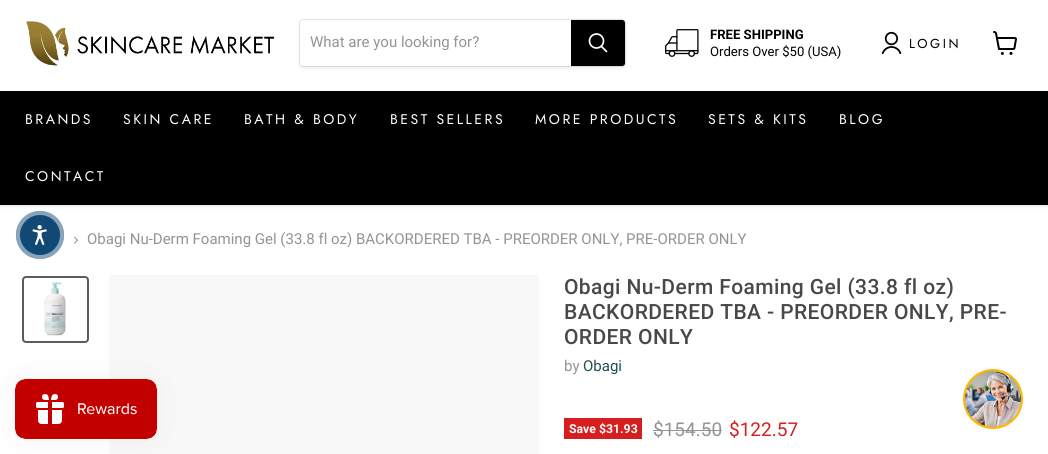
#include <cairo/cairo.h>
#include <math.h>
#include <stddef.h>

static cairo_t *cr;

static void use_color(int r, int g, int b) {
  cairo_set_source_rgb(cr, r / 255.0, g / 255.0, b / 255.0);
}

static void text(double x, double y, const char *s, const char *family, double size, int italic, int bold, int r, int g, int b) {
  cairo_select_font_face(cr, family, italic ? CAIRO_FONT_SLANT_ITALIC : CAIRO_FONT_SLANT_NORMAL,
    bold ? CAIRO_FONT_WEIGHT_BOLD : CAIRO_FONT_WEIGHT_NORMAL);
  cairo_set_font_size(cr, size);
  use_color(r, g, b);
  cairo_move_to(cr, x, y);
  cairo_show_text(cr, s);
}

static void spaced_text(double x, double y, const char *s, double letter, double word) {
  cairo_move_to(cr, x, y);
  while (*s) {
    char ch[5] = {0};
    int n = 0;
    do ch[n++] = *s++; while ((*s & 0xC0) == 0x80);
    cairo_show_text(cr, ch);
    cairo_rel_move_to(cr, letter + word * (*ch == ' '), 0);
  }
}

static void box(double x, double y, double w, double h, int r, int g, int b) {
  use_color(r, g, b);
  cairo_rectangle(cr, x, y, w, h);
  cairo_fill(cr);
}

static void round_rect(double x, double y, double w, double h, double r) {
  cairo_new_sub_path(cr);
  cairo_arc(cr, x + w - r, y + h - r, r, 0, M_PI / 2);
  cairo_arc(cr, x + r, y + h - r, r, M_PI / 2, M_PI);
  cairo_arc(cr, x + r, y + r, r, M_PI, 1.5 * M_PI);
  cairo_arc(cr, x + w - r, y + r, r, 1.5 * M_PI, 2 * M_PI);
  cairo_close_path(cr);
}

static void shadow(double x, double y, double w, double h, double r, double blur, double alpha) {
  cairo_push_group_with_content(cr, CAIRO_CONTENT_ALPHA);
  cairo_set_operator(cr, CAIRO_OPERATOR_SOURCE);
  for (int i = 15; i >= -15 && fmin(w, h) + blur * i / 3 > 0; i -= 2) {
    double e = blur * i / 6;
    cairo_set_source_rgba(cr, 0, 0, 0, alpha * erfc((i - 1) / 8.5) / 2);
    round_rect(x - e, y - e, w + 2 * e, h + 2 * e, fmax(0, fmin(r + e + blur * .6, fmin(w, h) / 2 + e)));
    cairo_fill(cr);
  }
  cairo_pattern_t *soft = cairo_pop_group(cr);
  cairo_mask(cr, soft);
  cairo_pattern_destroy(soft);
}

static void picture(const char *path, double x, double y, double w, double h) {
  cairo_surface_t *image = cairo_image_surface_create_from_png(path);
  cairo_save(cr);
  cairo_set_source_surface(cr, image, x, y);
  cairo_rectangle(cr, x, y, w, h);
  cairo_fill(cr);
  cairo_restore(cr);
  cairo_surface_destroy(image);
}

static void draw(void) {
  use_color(255, 255, 255);
  cairo_paint(cr);
  cairo_save(cr);
  cairo_rectangle(cr, 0, 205, 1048, 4);
  cairo_clip(cr);
  use_color(128, 128, 128);
  shadow(0, 1, 1048, 205, 0, 2, 0.25);
  cairo_restore(cr);
  picture("img_01.png", 26, 21, 249, 45);
  use_color(128, 128, 128);
  shadow(299, 21, 327, 48, 4, 1.5, 0.11);
  round_rect(299.5, 19.5, 326, 47, 3.5);
  cairo_set_source_rgba(cr, 0.502, 0.502, 0.502, 0.2);
  cairo_set_line_width(cr, 1);
  cairo_stroke(cr);
  use_color(255, 255, 255);
  cairo_new_path(cr);
  cairo_move_to(cr, 303, 20);
  cairo_line_to(cr, 571, 20);
  cairo_line_to(cr, 571, 66);
  cairo_line_to(cr, 303, 66);
  cairo_curve_to(cr, 301.5, 66, 300, 64.5, 300, 63);
  cairo_line_to(cr, 300, 23);
  cairo_curve_to(cr, 300, 21.5, 301.5, 20, 303, 20);
  cairo_close_path(cr);
  cairo_fill(cr);
  use_color(0, 0, 0);
  cairo_new_path(cr);
  cairo_move_to(cr, 571.5, 20.5);
  cairo_line_to(cr, 622, 20.5);
  cairo_curve_to(cr, 623.5, 20.5, 624.5, 21.5, 624.5, 23);
  cairo_line_to(cr, 624.5, 63);
  cairo_curve_to(cr, 624.5, 64.5, 623.5, 65.5, 622, 65.5);
  cairo_line_to(cr, 571.5, 65.5);
  cairo_close_path(cr);
  cairo_fill_preserve(cr);
  cairo_stroke(cr);
  cairo_new_path(cr);
  cairo_move_to(cr, 606.5, 51.5);
  cairo_line_to(cr, 601.5, 46.5);
  use_color(255, 255, 255);
  cairo_set_line_width(cr, 1.7);
  cairo_set_line_cap(cr, CAIRO_LINE_CAP_ROUND);
  cairo_stroke(cr);
  cairo_arc(cr, 596.5, 41, 7, 0, 2 * M_PI);
  cairo_set_line_cap(cr, CAIRO_LINE_CAP_BUTT);
  cairo_stroke(cr);
  picture("img_02.png", 665, 29, 34, 28);
  picture("img_03.png", 881, 31, 21, 24);
  picture("img_04.png", 993, 31, 24, 24);
  box(0, 91, 1048, 114, 0, 0, 0);
  use_color(17, 73, 116);
  cairo_arc(cr, 40, 235, 24, 0, 2 * M_PI);
  cairo_fill(cr);
  cairo_arc(cr, 40, 235, 22, 0, 2 * M_PI);
  cairo_set_source_rgba(cr, 1, 1, 1, 0.5);
  cairo_set_line_width(cr, 4);
  cairo_stroke(cr);
  picture("img_05.png", 32, 225, 15, 20);
  picture("img_06.png", 74, 236, 4, 8);
  round_rect(23, 277, 65, 65, 3);
  use_color(92, 92, 92);
  cairo_set_line_width(cr, 2);
  cairo_stroke(cr);
  picture("img_07.png", 44, 282, 22, 54);
  box(109, 275, 430, 179, 248, 248, 248);
  box(564, 418, 78, 21, 215, 30, 30);
  box(653, 430, 69, 1, 148, 148, 148);
  use_color(0, 0, 0);
  shadow(15, 379, 142, 60, 10, 12.5, 0.05);
  picture("img_08.png", 15, 379, 142, 60);
  use_color(252, 185, 0);
  cairo_arc(cr, 993, 399, 30, 0, 2 * M_PI);
  cairo_fill(cr);
  picture("img_09.png", 965, 371, 56, 56);
  text(310, 47, "What are you looking for?", "Roboto", 15, 0, 0, 148, 148, 148);
  text(710, 39, "FREE SHIPPING", "Roboto", 13.1, 0, 1, 0, 0, 0);
  text(710, 56, "Orders Over $50 (USA)", "Roboto", 13.1, 0, 0, 0, 0, 0);
  cairo_select_font_face(cr, "Jost", CAIRO_FONT_SLANT_NORMAL, CAIRO_FONT_WEIGHT_NORMAL);
  cairo_set_font_size(cr, 13);
  spaced_text(909, 48, "LOGIN", 2.5, 0);
  cairo_set_font_size(cr, 14);
  use_color(255, 255, 255);
  spaced_text(25, 124, "BRANDS", 2.5, 0);
  spaced_text(123, 124, "SKIN CARE", 2.5, 0);
  spaced_text(244, 124, "BATH & BODY", 2.5, 0);
  spaced_text(390, 124, "BEST SELLERS", 2.5, 0);
  spaced_text(535, 124, "MORE PRODUCTS", 2.5, 0);
  spaced_text(708, 124, "SETS & KITS", 2.5, 0);
  spaced_text(839, 124, "BLOG", 2.5, 0);
  spaced_text(25, 181, "CONTACT", 2.5, 0);
  text(87, 244, "Obagi Nu-Derm Foaming Gel (33.8 fl oz) BACKORDERED TBA - PREORDER ONLY, PRE-ORDER ONLY", "Roboto", 15, 0, 0, 148, 148, 148);
  cairo_select_font_face(cr, "Roboto Medium", CAIRO_FONT_SLANT_NORMAL, CAIRO_FONT_WEIGHT_NORMAL);
  cairo_set_font_size(cr, 21);
  use_color(72, 72, 72);
  spaced_text(564, 294, "Obagi Nu-Derm Foaming Gel (33.8 fl oz)", 0.4, 0);
  spaced_text(564, 319, "BACKORDERED TBA - PREORDER ONLY, PRE-", 0.4, 0);
  spaced_text(564, 344, "ORDER ONLY", 0.4, 0);
  text(564, 371, "by", "Roboto", 15, 0, 0, 148, 148, 148);
  text(583, 371, "Obagi", "Roboto", 15, 0, 0, 32, 80, 80);
  text(569, 433, "Save $31.93", "Roboto", 12.25, 0, 1, 255, 255, 255);
  text(653, 436, "$154.50", "Roboto", 19, 0, 0, 148, 148, 148);
  text(729, 436, "$122.57", "Roboto", 19, 0, 0, 215, 30, 30);
}

int main(void) {
  cairo_surface_t *surface = cairo_image_surface_create(CAIRO_FORMAT_RGB24, 1048, 454);
  cr = cairo_create(surface);
  cairo_font_options_t *options = cairo_font_options_create();
  cairo_font_options_set_hint_metrics(options, CAIRO_HINT_METRICS_OFF);
  cairo_font_options_set_hint_style(options, CAIRO_HINT_STYLE_NONE);
  cairo_set_font_options(cr, options);
  cairo_set_miter_limit(cr, 4);
  draw();
  cairo_surface_write_to_png(surface, "out.png");
  cairo_font_options_destroy(options);
  cairo_destroy(cr);
  cairo_surface_destroy(surface);
  return 0;
}
